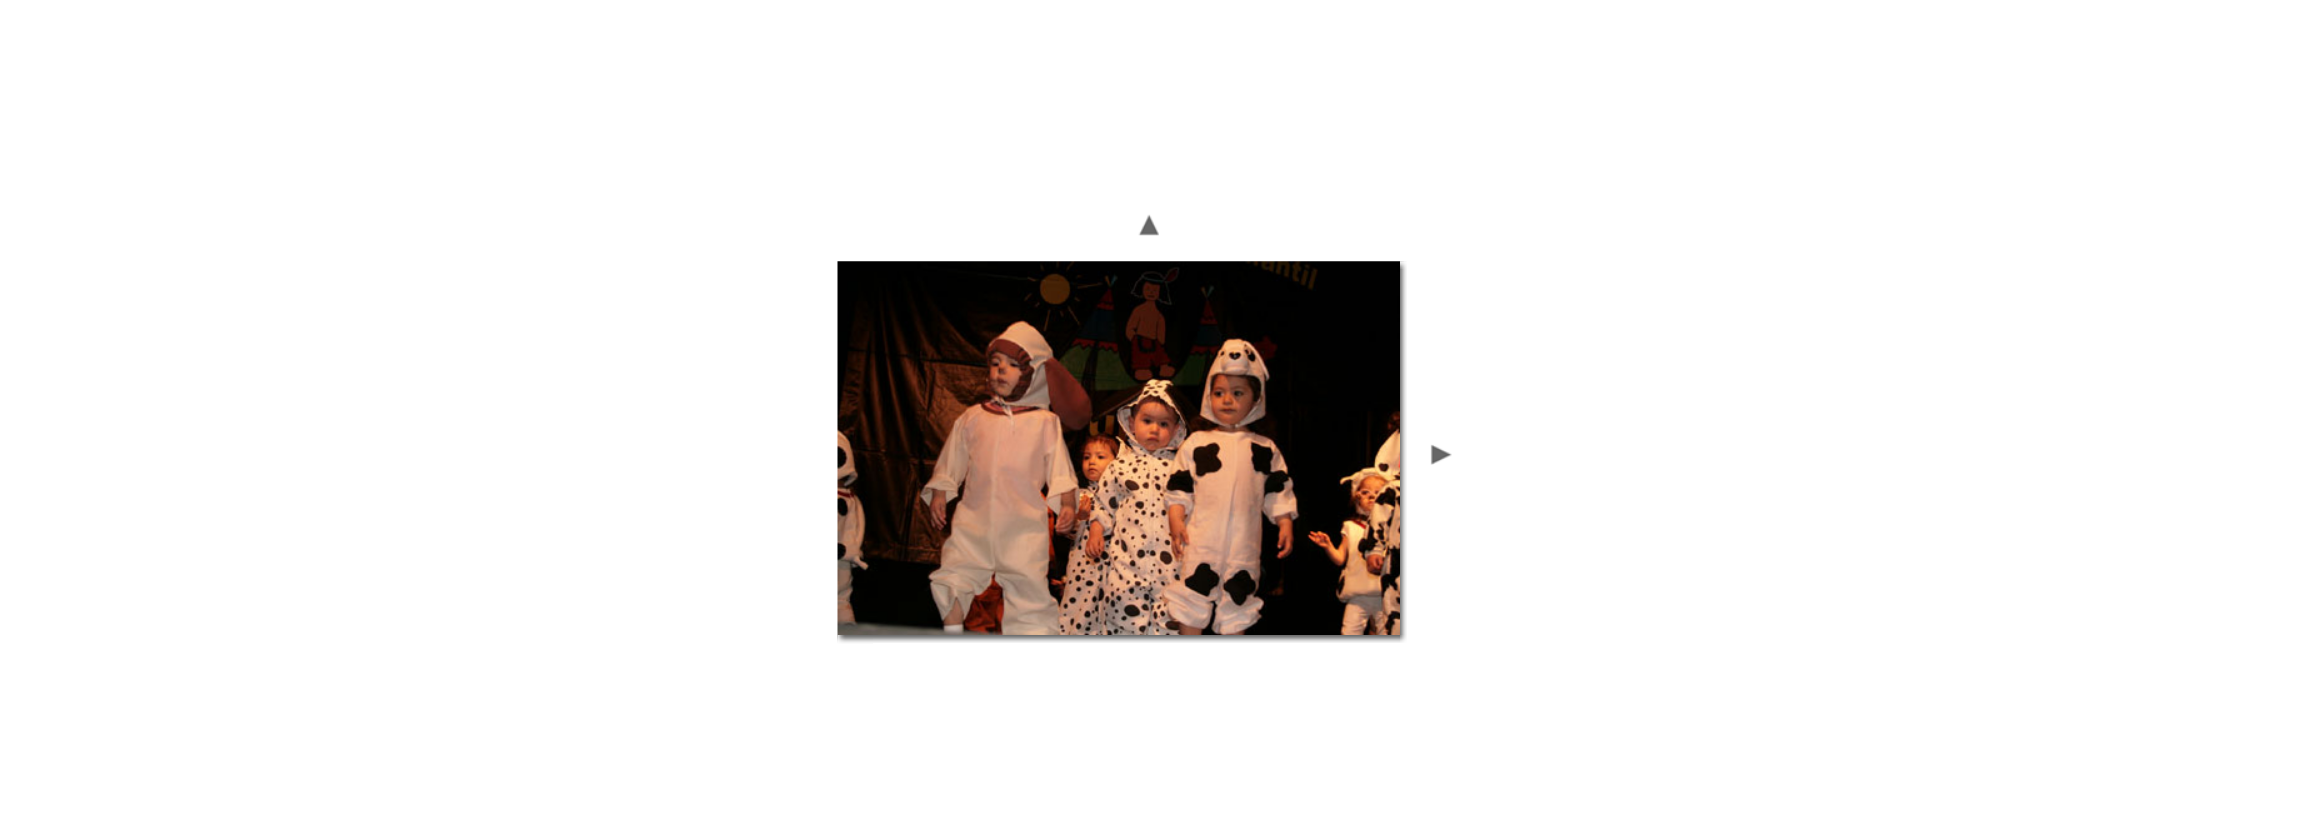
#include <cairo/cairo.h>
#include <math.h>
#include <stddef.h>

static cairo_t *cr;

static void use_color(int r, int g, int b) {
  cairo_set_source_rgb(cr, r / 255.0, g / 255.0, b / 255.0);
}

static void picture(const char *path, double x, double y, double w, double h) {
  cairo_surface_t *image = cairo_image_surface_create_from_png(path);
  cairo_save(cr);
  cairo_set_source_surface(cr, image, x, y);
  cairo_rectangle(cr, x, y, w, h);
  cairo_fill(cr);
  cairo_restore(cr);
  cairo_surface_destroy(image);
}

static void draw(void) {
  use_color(255, 255, 255);
  cairo_paint(cr);
  picture("img_01.png", 1138, 214, 21, 22);
  picture("img_02.png", 837, 261, 563, 374);
  picture("img_03.png", 1400, 261, 7, 374);
  picture("img_04.png", 1400, 261, 7, 8);
  picture("img_05.png", 837, 635, 563, 8);
  picture("img_06.png", 837, 635, 36, 9);
  picture("img_07.png", 1400, 635, 7, 8);
  picture("img_08.png", 1430, 444, 22, 21);
}

int main(void) {
  cairo_surface_t *surface = cairo_image_surface_create(CAIRO_FORMAT_RGB24, 2298, 820);
  cr = cairo_create(surface);
  cairo_font_options_t *options = cairo_font_options_create();
  cairo_font_options_set_hint_metrics(options, CAIRO_HINT_METRICS_OFF);
  cairo_font_options_set_hint_style(options, CAIRO_HINT_STYLE_NONE);
  cairo_set_font_options(cr, options);
  cairo_set_miter_limit(cr, 4);
  draw();
  cairo_surface_write_to_png(surface, "out.png");
  cairo_font_options_destroy(options);
  cairo_destroy(cr);
  cairo_surface_destroy(surface);
  return 0;
}
